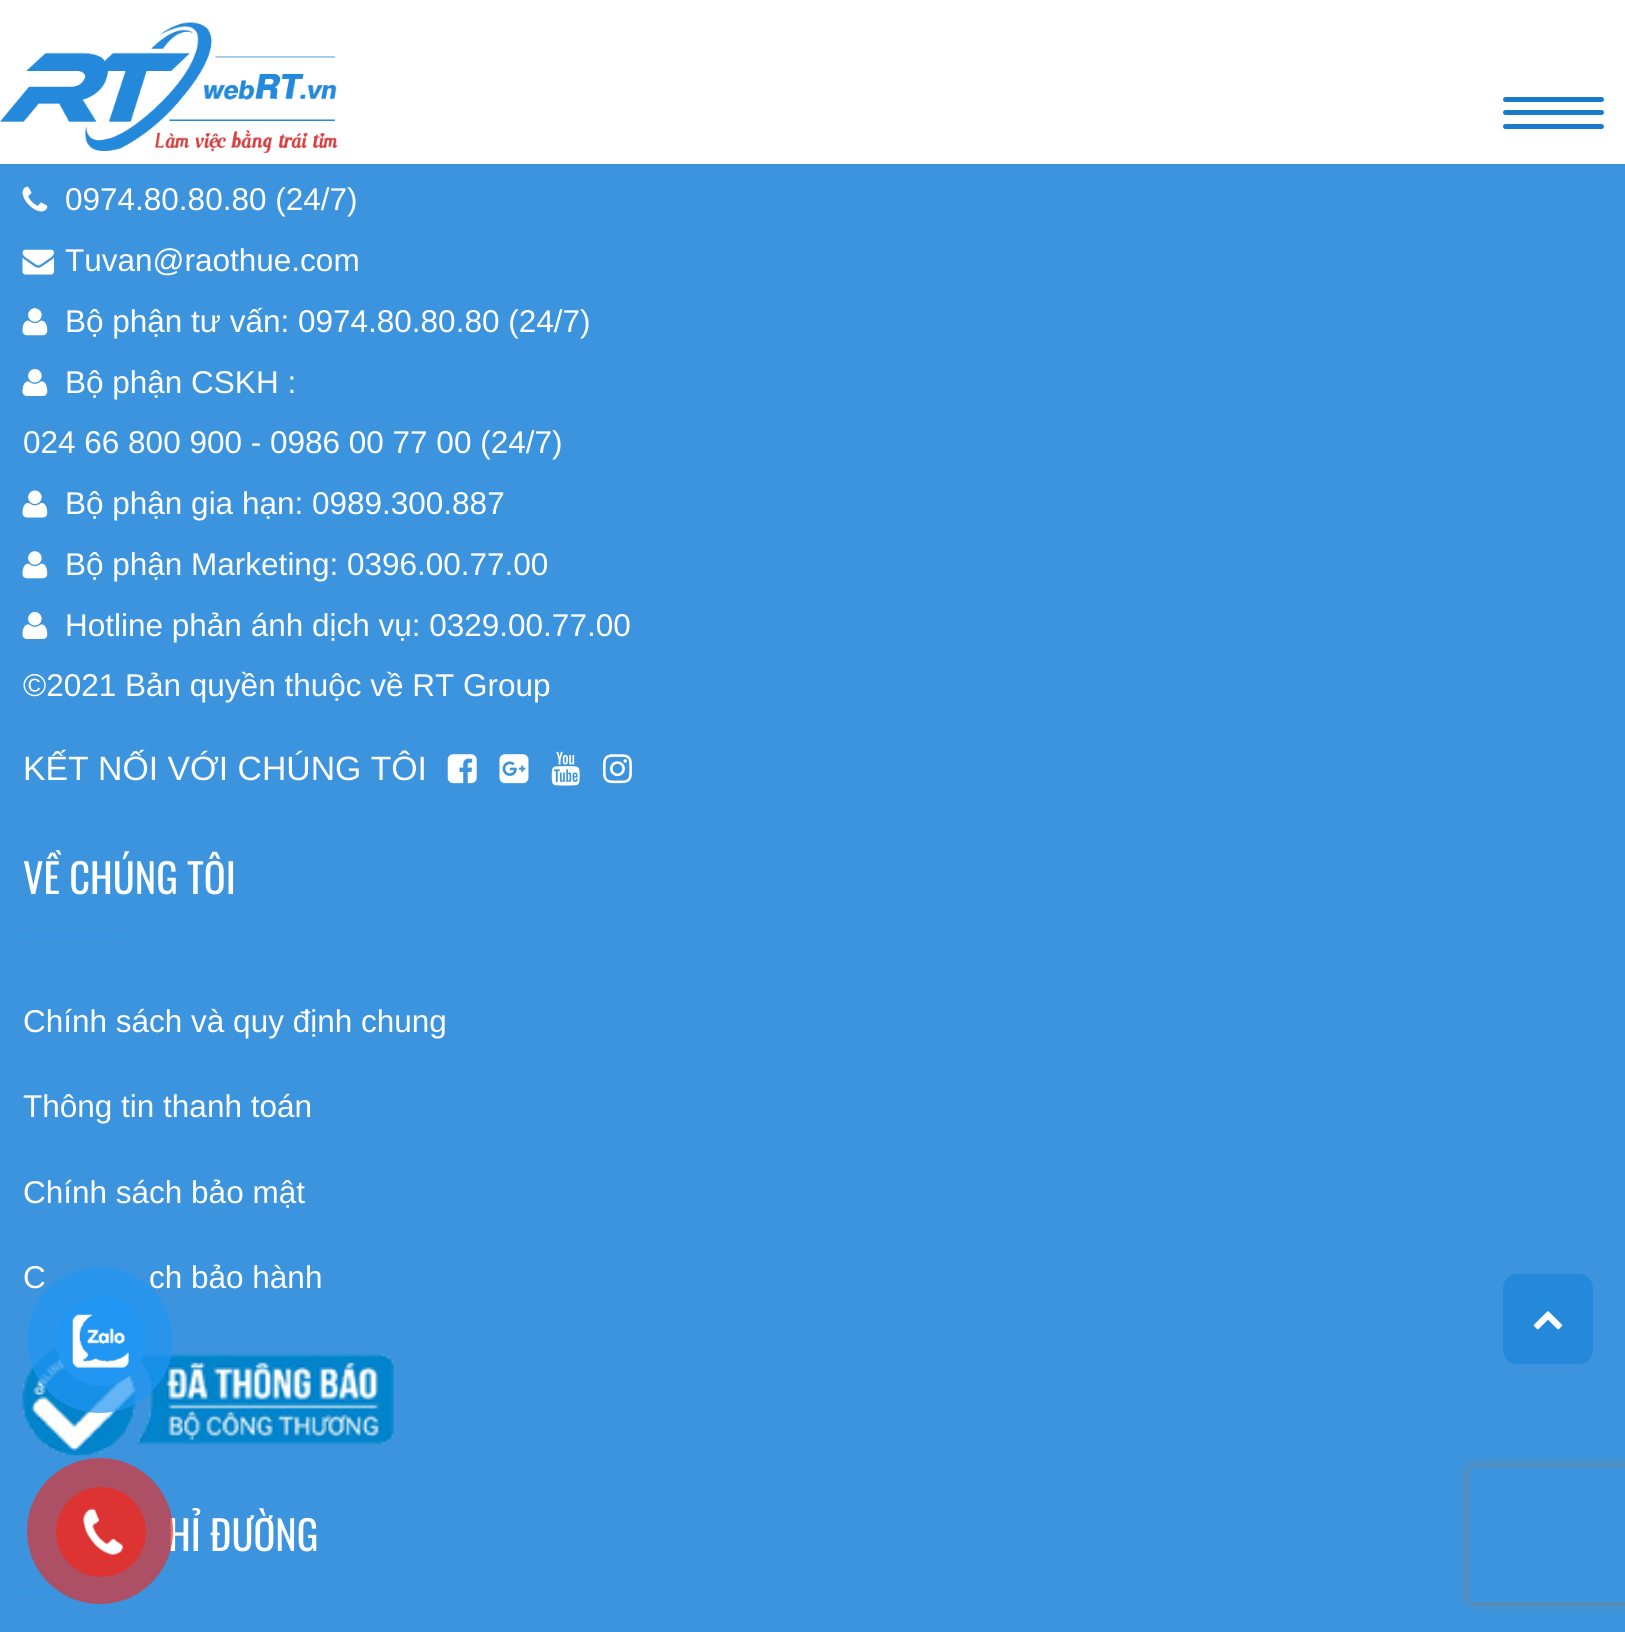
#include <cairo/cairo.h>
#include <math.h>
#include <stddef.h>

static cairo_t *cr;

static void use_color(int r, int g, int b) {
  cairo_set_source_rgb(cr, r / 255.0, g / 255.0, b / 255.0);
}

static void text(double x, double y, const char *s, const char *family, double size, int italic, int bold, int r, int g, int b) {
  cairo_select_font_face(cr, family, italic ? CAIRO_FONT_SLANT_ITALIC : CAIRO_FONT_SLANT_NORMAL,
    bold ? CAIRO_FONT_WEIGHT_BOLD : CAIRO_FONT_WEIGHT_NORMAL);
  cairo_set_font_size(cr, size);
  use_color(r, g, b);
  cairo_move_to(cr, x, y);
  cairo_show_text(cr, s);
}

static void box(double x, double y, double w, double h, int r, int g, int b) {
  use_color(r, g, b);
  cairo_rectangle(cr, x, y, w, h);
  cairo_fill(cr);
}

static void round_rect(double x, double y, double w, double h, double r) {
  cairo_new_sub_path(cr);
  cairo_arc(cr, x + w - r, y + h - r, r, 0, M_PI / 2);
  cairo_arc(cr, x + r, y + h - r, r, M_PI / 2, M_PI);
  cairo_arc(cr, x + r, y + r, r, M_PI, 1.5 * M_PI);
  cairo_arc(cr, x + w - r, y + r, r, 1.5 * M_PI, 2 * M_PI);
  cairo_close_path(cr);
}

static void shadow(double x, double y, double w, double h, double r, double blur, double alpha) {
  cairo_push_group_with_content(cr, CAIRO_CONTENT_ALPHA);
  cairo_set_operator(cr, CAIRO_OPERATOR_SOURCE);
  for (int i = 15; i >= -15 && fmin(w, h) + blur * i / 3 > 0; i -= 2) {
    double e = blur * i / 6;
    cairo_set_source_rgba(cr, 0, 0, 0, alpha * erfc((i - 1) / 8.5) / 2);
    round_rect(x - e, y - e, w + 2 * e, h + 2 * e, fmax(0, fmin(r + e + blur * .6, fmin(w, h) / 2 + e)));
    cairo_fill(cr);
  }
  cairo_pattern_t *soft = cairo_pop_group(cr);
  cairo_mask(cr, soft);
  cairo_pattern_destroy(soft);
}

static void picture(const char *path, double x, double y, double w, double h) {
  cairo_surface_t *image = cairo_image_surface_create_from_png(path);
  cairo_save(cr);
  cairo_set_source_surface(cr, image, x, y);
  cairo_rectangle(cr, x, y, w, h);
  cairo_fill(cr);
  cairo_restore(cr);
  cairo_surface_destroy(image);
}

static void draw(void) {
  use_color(59, 148, 221);
  cairo_paint(cr);
  box(0, 0, 1625, 164, 255, 255, 255);
  picture("img_01.png", 0, 22, 338, 131);
  use_color(27, 123, 203);
  round_rect(1503, 97, 101, 5, 2.5);
  cairo_fill(cr);
  round_rect(1503, 110, 101, 5, 2.5);
  cairo_fill(cr);
  round_rect(1503, 124, 101, 5, 2.5);
  cairo_fill(cr);
  picture("img_02.png", 22, 186, 26, 26);
  picture("img_03.png", 22, 249, 32, 26);
  picture("img_04.png", 22, 308, 26, 28);
  picture("img_05.png", 22, 369, 26, 27);
  picture("img_06.png", 22, 490, 26, 28);
  picture("img_04.png", 22, 551, 26, 28);
  picture("img_05.png", 22, 612, 26, 27);
  picture("img_07.png", 447, 754, 30, 30);
  picture("img_08.png", 499, 754, 30, 30);
  picture("img_09.png", 551, 751, 29, 35);
  picture("img_10.png", 603, 754, 29, 30);
  box(23, 932, 99, 5, 55, 149, 225);
  picture("img_11.png", 22, 1345, 372, 111);
  box(23, 1589, 99, 5, 55, 149, 225);
  use_color(36, 137, 218);
  round_rect(1503, 1274, 90, 90, 14);
  cairo_fill(cr);
  picture("img_12.png", 1533, 1311, 30, 19);
  cairo_save(cr);
  cairo_set_fill_rule(cr, CAIRO_FILL_RULE_EVEN_ODD);
  cairo_new_path(cr);
  cairo_move_to(cr, 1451, 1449);
  cairo_line_to(cr, 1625, 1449);
  cairo_line_to(cr, 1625, 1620);
  cairo_line_to(cr, 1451, 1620);
  cairo_close_path(cr);
  cairo_move_to(cr, 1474, 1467);
  cairo_line_to(cr, 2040, 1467);
  cairo_curve_to(cr, 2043, 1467, 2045, 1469, 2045, 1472);
  cairo_line_to(cr, 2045, 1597);
  cairo_curve_to(cr, 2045, 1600, 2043, 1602, 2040, 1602);
  cairo_line_to(cr, 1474, 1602);
  cairo_curve_to(cr, 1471, 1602, 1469, 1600, 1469, 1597);
  cairo_line_to(cr, 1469, 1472);
  cairo_curve_to(cr, 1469, 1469, 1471, 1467, 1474, 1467);
  cairo_close_path(cr);
  cairo_clip(cr);
  use_color(128, 128, 128);
  shadow(1469, 1467, 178, 135, 5, 5.5, 1);
  cairo_restore(cr);
  text(65, 210, "0974.80.80.80 (24/7)", "Liberation Sans", 31.5, 0, 0, 255, 255, 255);
  text(65, 271, "Tuvan@raothue.com", "Liberation Sans", 31.5, 0, 0, 255, 255, 255);
  text(65, 332, "Bộ phận tư vấn: 0974.80.80.80 (24/7)", "Liberation Sans", 31.5, 0, 0, 255, 255, 255);
  text(65, 393, "Bộ phận CSKH :", "Liberation Sans", 31.5, 0, 0, 255, 255, 255);
  text(23, 453, "024 66 800 900 - 0986 00 77 00 (24/7)", "Liberation Sans", 31.5, 0, 0, 255, 255, 255);
  text(65, 514, "Bộ phận gia hạn: 0989.300.887", "Liberation Sans", 31.5, 0, 0, 255, 255, 255);
  text(65, 575, "Bộ phận Marketing: 0396.00.77.00", "Liberation Sans", 31.5, 0, 0, 255, 255, 255);
  text(65, 636, "Hotline phản ánh dịch vụ: 0329.00.77.00", "Liberation Sans", 31.5, 0, 0, 255, 255, 255);
  text(23, 696, "©2021 Bản quyền thuộc về RT Group", "Liberation Sans", 31.5, 0, 0, 255, 255, 255);
  text(23, 780, "KẾT NỐI VỚI CHÚNG TÔI", "Liberation Sans", 33.75, 0, 0, 255, 255, 255);
  text(23, 894, "VỀ CHÚNG TÔI", "Oswald", 40.5, 0, 0, 255, 255, 255);
  text(23, 1032, "Chính sách và quy định chung", "Liberation Sans", 31.5, 0, 0, 255, 255, 255);
  text(23, 1117, "Thông tin thanh toán", "Liberation Sans", 31.5, 0, 0, 255, 255, 255);
  text(23, 1203, "Chính sách bảo mật", "Liberation Sans", 31.5, 0, 0, 255, 255, 255);
  text(23, 1288, "C", "Liberation Sans", 31.5, 0, 0, 255, 255, 255);
  text(149, 1288, "ch bảo hành", "Liberation Sans", 31.5, 0, 0, 255, 255, 255);
  text(168, 1551, "HỈ ĐƯỜNG", "Oswald", 40.5, 0, 0, 255, 255, 255);
  cairo_set_source_rgba(cr, 0.129, 0.588, 0.953, 0.7);
  cairo_new_path(cr);
  cairo_arc(cr, 100, 1340, 73, 0, 2 * M_PI);
  cairo_fill(cr);
  use_color(33, 150, 243);
  cairo_arc(cr, 101, 1341, 45, 0, 2 * M_PI);
  cairo_fill(cr);
  picture("img_13.png", 72, 1314, 57, 54);
  cairo_set_source_rgba(cr, 0.867, 0.2, 0.2, 0.7);
  cairo_arc(cr, 100, 1531, 73, 0, 2 * M_PI);
  cairo_fill(cr);
  use_color(221, 51, 51);
  cairo_arc(cr, 101, 1532, 45, 0, 2 * M_PI);
  cairo_fill(cr);
  picture("img_14.png", 83, 1508, 40, 47);
}

int main(void) {
  cairo_surface_t *surface = cairo_image_surface_create(CAIRO_FORMAT_RGB24, 1625, 1632);
  cr = cairo_create(surface);
  cairo_font_options_t *options = cairo_font_options_create();
  cairo_font_options_set_hint_metrics(options, CAIRO_HINT_METRICS_OFF);
  cairo_font_options_set_hint_style(options, CAIRO_HINT_STYLE_NONE);
  cairo_set_font_options(cr, options);
  cairo_set_miter_limit(cr, 4);
  draw();
  cairo_surface_write_to_png(surface, "out.png");
  cairo_font_options_destroy(options);
  cairo_destroy(cr);
  cairo_surface_destroy(surface);
  return 0;
}
